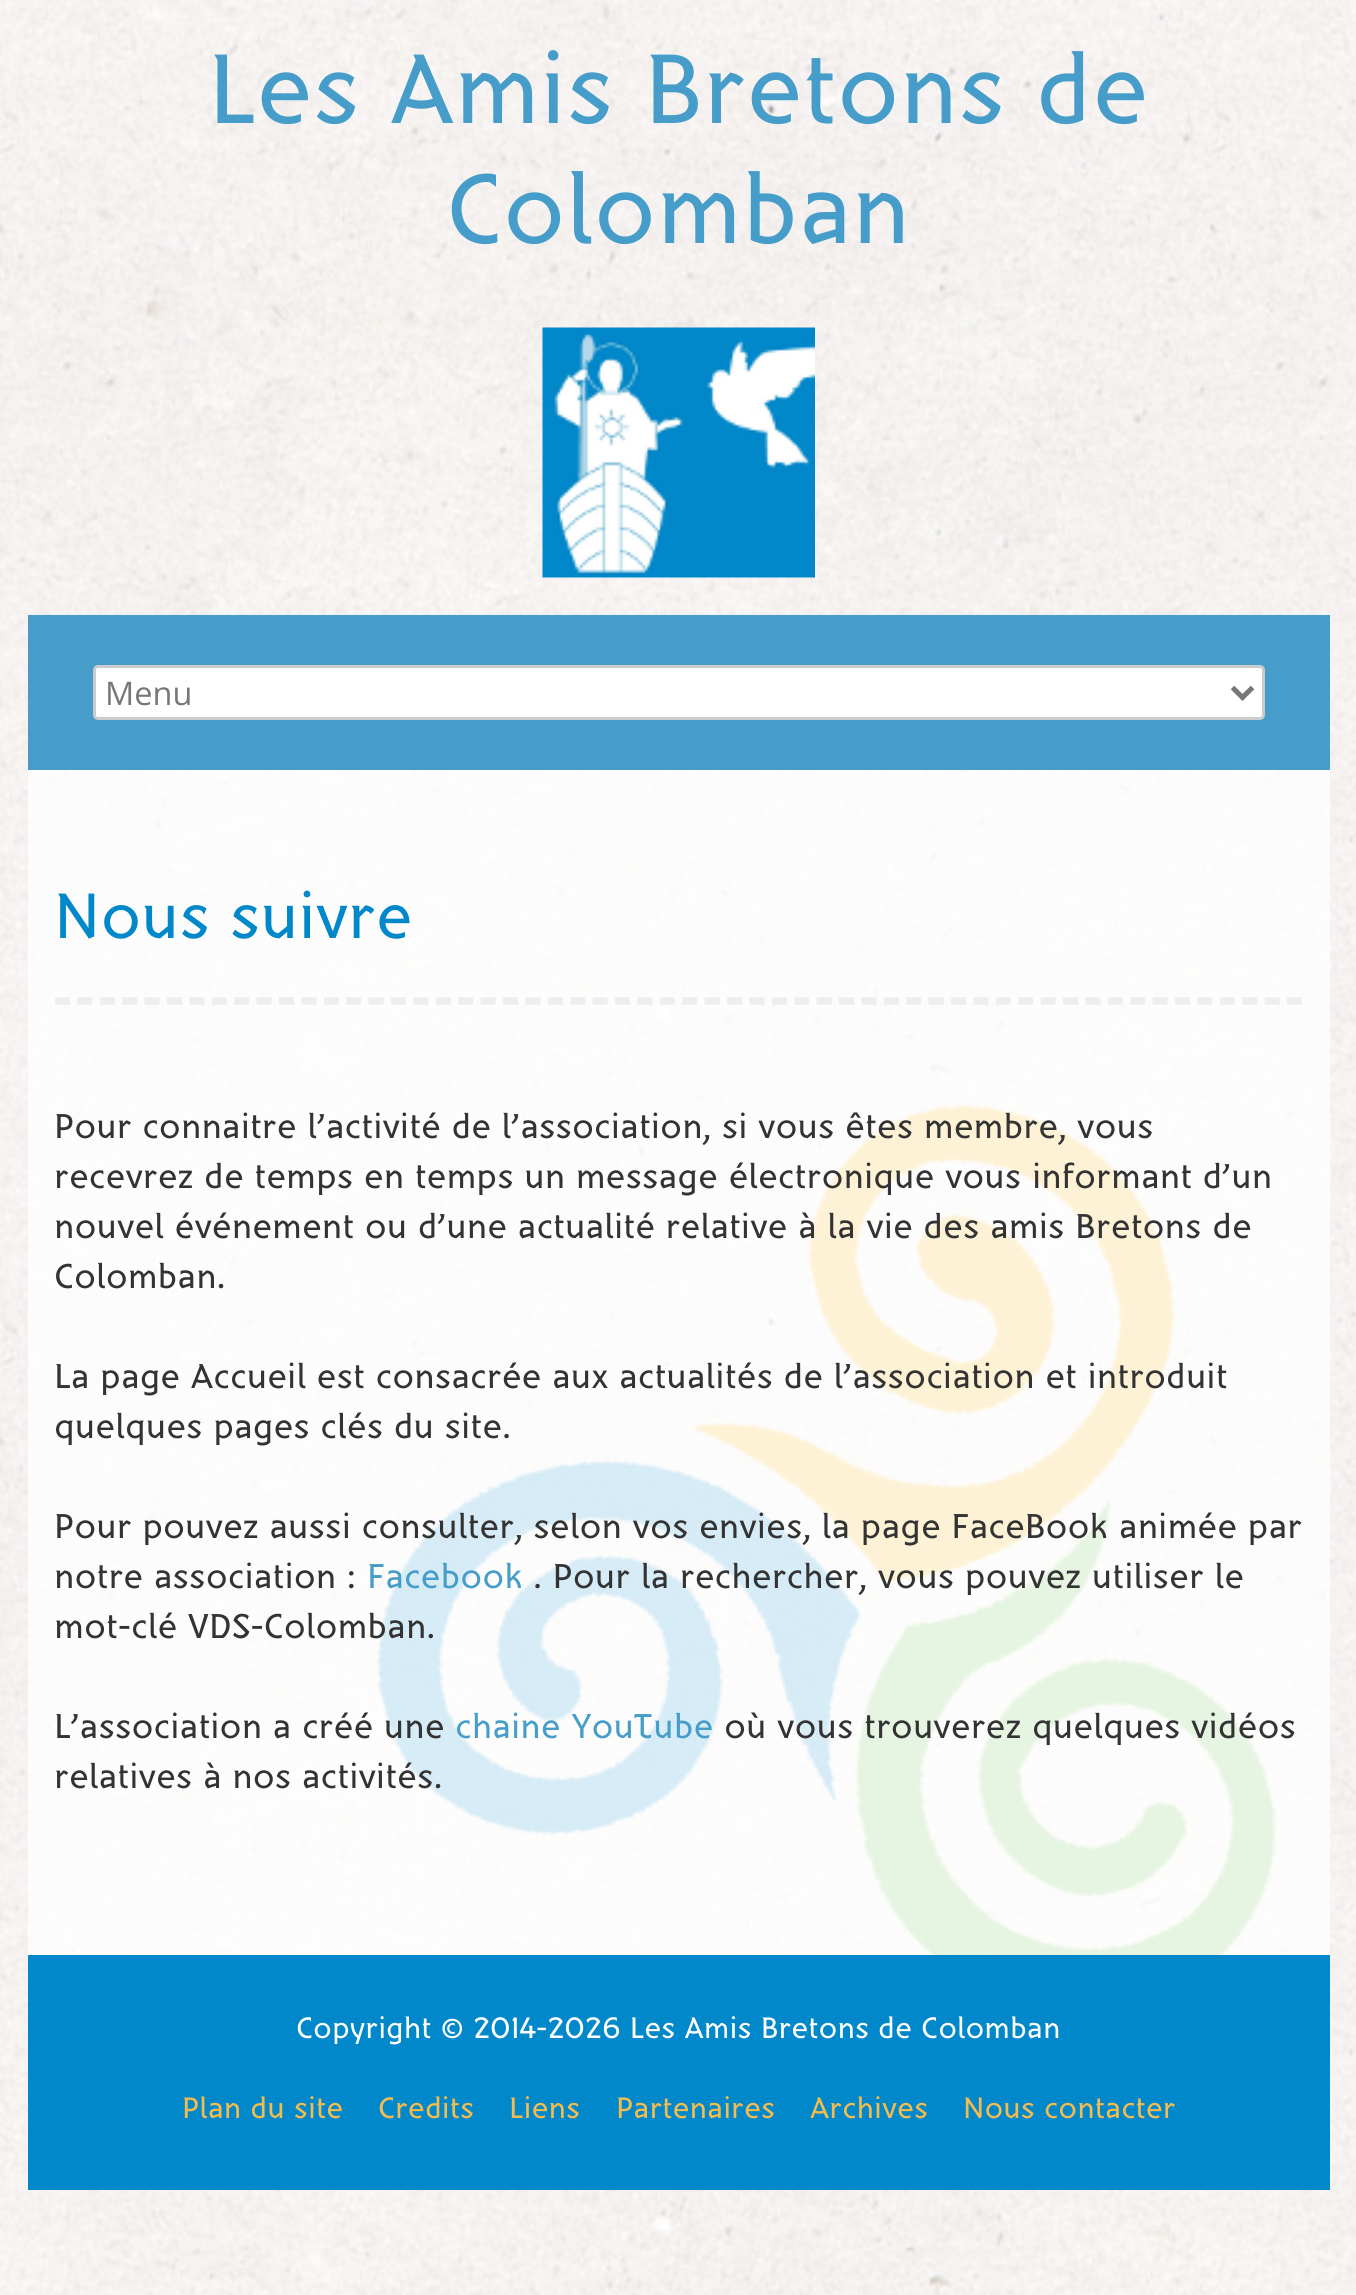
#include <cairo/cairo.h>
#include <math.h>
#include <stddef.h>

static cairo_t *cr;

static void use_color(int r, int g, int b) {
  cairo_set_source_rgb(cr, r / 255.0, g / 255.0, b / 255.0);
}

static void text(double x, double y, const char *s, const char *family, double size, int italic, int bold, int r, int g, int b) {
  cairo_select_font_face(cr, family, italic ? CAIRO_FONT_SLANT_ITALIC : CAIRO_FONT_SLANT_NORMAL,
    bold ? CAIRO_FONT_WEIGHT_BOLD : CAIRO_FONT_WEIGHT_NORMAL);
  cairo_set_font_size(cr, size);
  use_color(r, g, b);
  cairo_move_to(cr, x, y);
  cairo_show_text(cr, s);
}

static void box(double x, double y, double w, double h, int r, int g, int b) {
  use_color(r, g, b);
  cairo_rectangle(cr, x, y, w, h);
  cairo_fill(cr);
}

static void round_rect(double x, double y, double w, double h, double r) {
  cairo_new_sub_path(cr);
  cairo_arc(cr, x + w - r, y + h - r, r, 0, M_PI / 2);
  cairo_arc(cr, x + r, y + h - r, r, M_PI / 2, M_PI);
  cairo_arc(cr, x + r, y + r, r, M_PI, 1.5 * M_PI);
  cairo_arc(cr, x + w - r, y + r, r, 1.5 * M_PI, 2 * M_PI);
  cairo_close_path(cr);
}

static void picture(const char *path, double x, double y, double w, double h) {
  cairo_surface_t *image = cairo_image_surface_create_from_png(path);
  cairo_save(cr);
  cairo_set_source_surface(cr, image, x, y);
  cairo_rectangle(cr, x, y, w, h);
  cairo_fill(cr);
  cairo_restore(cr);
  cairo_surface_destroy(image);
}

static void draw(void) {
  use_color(255, 255, 255);
  cairo_paint(cr);
  picture("img_01.png", 0, 0, 1356, 2295);
  picture("img_02.png", 542, 327, 273, 251);
  box(28, 615, 1302, 155, 70, 157, 201);
  use_color(255, 255, 255);
  round_rect(94.5, 666.5, 1169, 52, 3.5);
  cairo_fill_preserve(cr);
  use_color(204, 204, 204);
  cairo_set_line_width(cr, 3);
  cairo_stroke(cr);
  cairo_new_path(cr);
  cairo_move_to(cr, 1232.5, 687.5);
  cairo_line_to(cr, 1242.5, 697.5);
  cairo_line_to(cr, 1252.5, 687.5);
  use_color(119, 119, 119);
  cairo_set_line_width(cr, 5);
  cairo_stroke(cr);
  cairo_set_source_rgba(cr, 1, 1, 1, 0.8);
  cairo_rectangle(cr, 28, 770, 1302, 1185);
  cairo_fill(cr);
  cairo_new_path(cr);
  cairo_move_to(cr, 55, 1001);
  cairo_line_to(cr, 1302.5, 1001);
  use_color(238, 238, 238);
  cairo_set_line_width(cr, 7.5);
  cairo_set_dash(cr, (double[]){15, 7.4}, 2, 0);
  cairo_stroke(cr);
  box(28, 1955, 1302, 235, 1, 136, 202);
  text(208, 123, "Les Amis Bretons de", "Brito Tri", 100, 0, 0, 70, 157, 201);
  text(446, 243, "Colomban", "Brito Tri", 100, 0, 0, 70, 157, 201);
  text(105, 705, "Menu", "Open Sans", 32.5, 0, 0, 119, 119, 119);
  text(54, 938, "Nous suivre", "Brito Tri", 65, 0, 0, 1, 136, 202);
  text(54, 1138, "Pour connaitre l’activité de l’association, si vous êtes membre, vous", "Brito Tri", 35, 0, 0, 51, 51, 51);
  text(54, 1188, "recevrez de temps en temps un message électronique vous informant d’un", "Brito Tri", 35, 0, 0, 51, 51, 51);
  text(54, 1238, "nouvel événement ou d’une actualité relative à la vie des amis Bretons de", "Brito Tri", 35, 0, 0, 51, 51, 51);
  text(54, 1288, "Colomban.", "Brito Tri", 35, 0, 0, 51, 51, 51);
  text(54, 1388, "La page Accueil est consacrée aux actualités de l’association et introduit", "Brito Tri", 35, 0, 0, 51, 51, 51);
  text(54, 1438, "quelques pages clés du site.", "Brito Tri", 35, 0, 0, 51, 51, 51);
  text(54, 1538, "Pour pouvez aussi consulter, selon vos envies, la page FaceBook animée par", "Brito Tri", 35, 0, 0, 51, 51, 51);
  text(54, 1588, "notre association :", "Brito Tri", 35, 0, 0, 51, 51, 51);
  text(367, 1588, "Facebook", "Brito Tri", 35, 0, 0, 70, 157, 201);
  text(533, 1588, ". Pour la rechercher, vous pouvez utiliser le", "Brito Tri", 35, 0, 0, 51, 51, 51);
  text(54, 1638, "mot-clé VDS-Colomban.", "Brito Tri", 35, 0, 0, 51, 51, 51);
  text(54, 1738, "L’association a créé une", "Brito Tri", 35, 0, 0, 51, 51, 51);
  text(455, 1738, "chaine YouTube", "Brito Tri", 35, 0, 0, 70, 157, 201);
  text(724, 1738, "où vous trouverez quelques vidéos", "Brito Tri", 35, 0, 0, 51, 51, 51);
  text(54, 1788, "relatives à nos activités.", "Brito Tri", 35, 0, 0, 51, 51, 51);
  text(296, 2038, "Copyright © 2014-2026 Les Amis Bretons de Colomban", "Brito Tri", 30, 0, 0, 255, 255, 255);
  text(182, 2118, "Plan du site", "Brito Tri", 30, 0, 0, 244, 188, 78);
  text(378, 2118, "Credits", "Brito Tri", 30, 0, 0, 244, 188, 78);
  text(509, 2118, "Liens", "Brito Tri", 30, 0, 0, 244, 188, 78);
  text(616, 2118, "Partenaires", "Brito Tri", 30, 0, 0, 244, 188, 78);
  text(810, 2118, "Archives", "Brito Tri", 30, 0, 0, 244, 188, 78);
  text(963, 2118, "Nous contacter", "Brito Tri", 30, 0, 0, 244, 188, 78);
}

int main(void) {
  cairo_surface_t *surface = cairo_image_surface_create(CAIRO_FORMAT_RGB24, 1356, 2295);
  cr = cairo_create(surface);
  cairo_font_options_t *options = cairo_font_options_create();
  cairo_font_options_set_hint_metrics(options, CAIRO_HINT_METRICS_OFF);
  cairo_font_options_set_hint_style(options, CAIRO_HINT_STYLE_NONE);
  cairo_set_font_options(cr, options);
  cairo_set_miter_limit(cr, 4);
  draw();
  cairo_surface_write_to_png(surface, "out.png");
  cairo_font_options_destroy(options);
  cairo_destroy(cr);
  cairo_surface_destroy(surface);
  return 0;
}
